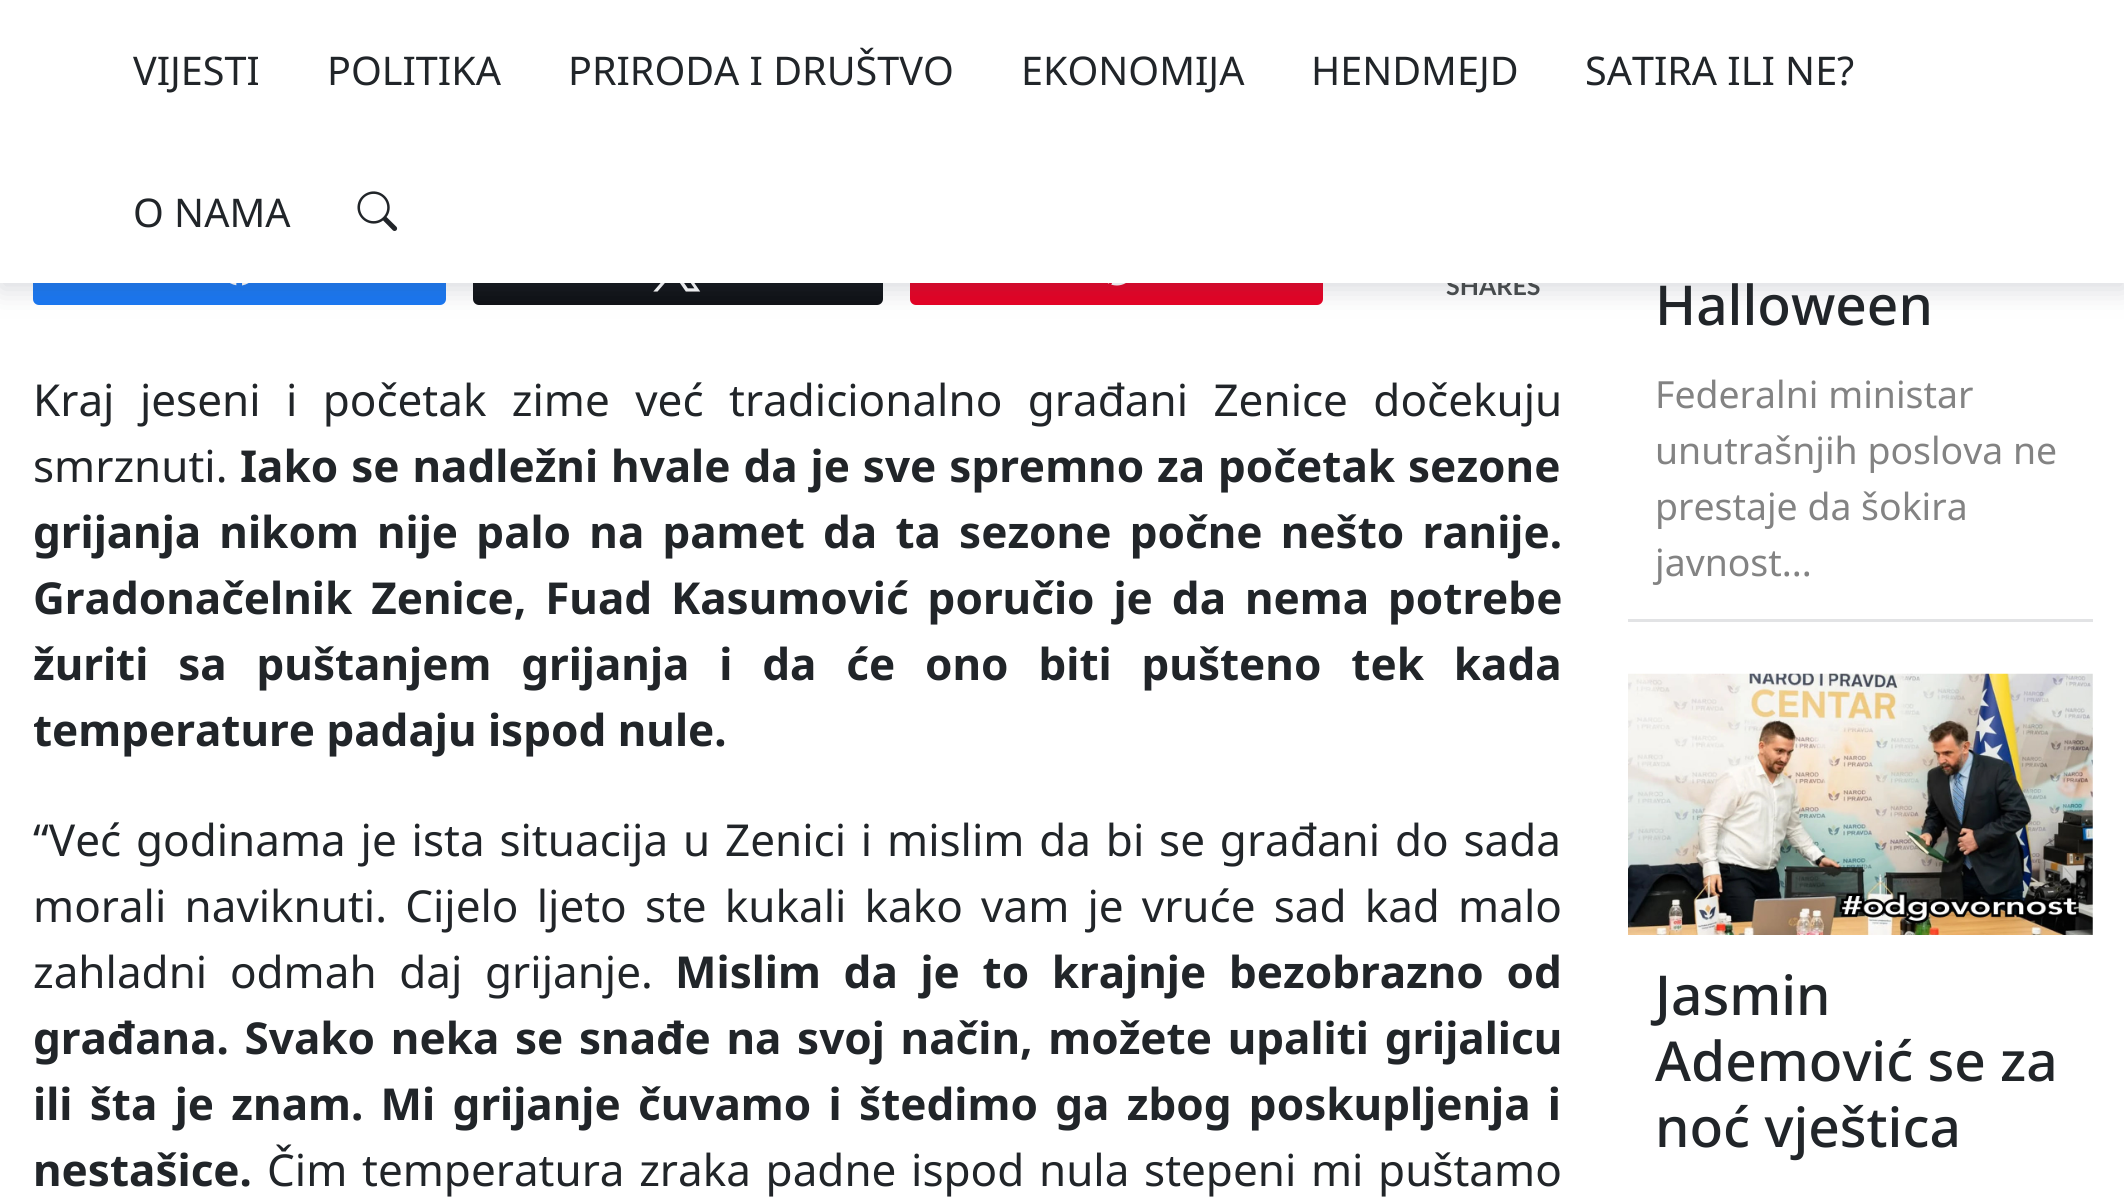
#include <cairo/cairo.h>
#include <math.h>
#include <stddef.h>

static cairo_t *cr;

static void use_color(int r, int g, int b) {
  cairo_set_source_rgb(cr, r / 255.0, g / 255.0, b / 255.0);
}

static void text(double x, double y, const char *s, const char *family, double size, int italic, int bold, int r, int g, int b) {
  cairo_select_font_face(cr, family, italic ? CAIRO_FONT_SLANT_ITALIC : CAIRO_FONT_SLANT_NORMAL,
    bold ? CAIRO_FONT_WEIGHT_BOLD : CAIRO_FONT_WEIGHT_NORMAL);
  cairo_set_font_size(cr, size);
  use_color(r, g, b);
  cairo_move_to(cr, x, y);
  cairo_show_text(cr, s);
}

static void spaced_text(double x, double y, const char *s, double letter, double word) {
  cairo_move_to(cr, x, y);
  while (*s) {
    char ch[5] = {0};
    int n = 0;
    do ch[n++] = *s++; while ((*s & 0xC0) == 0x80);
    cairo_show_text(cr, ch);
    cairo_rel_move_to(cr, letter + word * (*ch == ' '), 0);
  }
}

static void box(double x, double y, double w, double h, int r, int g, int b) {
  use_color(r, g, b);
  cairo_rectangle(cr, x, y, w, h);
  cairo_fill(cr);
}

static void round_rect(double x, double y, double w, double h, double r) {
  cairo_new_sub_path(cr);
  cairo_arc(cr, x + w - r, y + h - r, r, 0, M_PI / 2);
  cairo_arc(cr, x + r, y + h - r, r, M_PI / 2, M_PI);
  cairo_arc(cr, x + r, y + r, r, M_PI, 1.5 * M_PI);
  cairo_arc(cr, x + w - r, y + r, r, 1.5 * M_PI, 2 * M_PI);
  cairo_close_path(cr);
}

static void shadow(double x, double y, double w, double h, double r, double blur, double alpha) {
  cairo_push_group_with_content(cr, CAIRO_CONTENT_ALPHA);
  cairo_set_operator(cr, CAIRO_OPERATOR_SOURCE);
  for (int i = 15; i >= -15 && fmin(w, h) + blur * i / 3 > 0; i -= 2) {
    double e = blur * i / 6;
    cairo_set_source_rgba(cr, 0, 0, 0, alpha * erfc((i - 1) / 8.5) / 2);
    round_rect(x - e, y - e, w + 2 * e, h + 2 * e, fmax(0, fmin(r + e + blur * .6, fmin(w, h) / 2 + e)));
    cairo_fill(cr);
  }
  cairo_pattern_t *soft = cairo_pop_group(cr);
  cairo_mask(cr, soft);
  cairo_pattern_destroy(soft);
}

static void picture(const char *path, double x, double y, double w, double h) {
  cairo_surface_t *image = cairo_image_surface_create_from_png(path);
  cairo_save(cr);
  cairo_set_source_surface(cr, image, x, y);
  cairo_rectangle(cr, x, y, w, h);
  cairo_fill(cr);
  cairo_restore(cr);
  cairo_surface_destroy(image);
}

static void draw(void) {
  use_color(255, 255, 255);
  cairo_paint(cr);
  use_color(24, 119, 242);
  round_rect(34.5, 218.5, 410, 85, 4.5);
  cairo_fill_preserve(cr);
  cairo_set_line_width(cr, 3);
  cairo_stroke(cr);
  picture("img_02.png", 230, 283, 19, 3);
  use_color(13, 16, 20);
  round_rect(474.5, 218.5, 407, 85, 4.5);
  cairo_fill_preserve(cr);
  cairo_stroke(cr);
  picture("img_03.png", 653, 283, 48, 9);
  use_color(230, 0, 35);
  round_rect(911.5, 218.5, 410, 85, 4.5);
  cairo_fill_preserve(cr);
  cairo_stroke(cr);
  picture("img_04.png", 1107, 283, 19, 3);
  use_color(76, 78, 100);
  shadow(0, 6, 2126, 283, 0, 14, 0.22);
  use_color(226, 227, 229);
  cairo_new_path(cr);
  cairo_move_to(cr, 1628, 619);
  cairo_line_to(cr, 1628, 622);
  cairo_line_to(cr, 2093, 622);
  cairo_line_to(cr, 2093, -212);
  cairo_line_to(cr, 2093, 619);
  cairo_close_path(cr);
  cairo_fill(cr);
  picture("img_05.png", 1628, 673, 465, 262);
  text(1446, 295, "SHARES", "Lato", 25, 0, 1, 71, 75, 77);
  box(0, 0, 2124, 283, 255, 255, 255);
  picture("img_01.png", 357, 191, 41, 40);
  text(133, 227, "O NAMA", "Noto Sans", 39.5, 0, 0, 33, 37, 41);
  text(1585, 85, "SATIRA ILI NE?", "Noto Sans", 39.5, 0, 0, 33, 37, 41);
  text(1311, 85, "HENDMEJD", "Noto Sans", 39.5, 0, 0, 33, 37, 41);
  text(1021, 85, "EKONOMIJA", "Noto Sans", 39.5, 0, 0, 33, 37, 41);
  text(568, 85, "PRIRODA I DRUŠTVO", "Noto Sans", 39.5, 0, 0, 33, 37, 41);
  text(327, 85, "POLITIKA", "Noto Sans", 39.5, 0, 0, 33, 37, 41);
  text(133, 85, "VIJESTI", "Noto Sans", 39.5, 0, 0, 33, 37, 41);
  cairo_set_font_size(cr, 44);
  spaced_text(33, 416, "Kraj jeseni i početak zime već tradicionalno građani Zenice dočekuju", 0, 14);
  text(33, 482, "smrznuti.", "Noto Sans", 44, 0, 0, 33, 37, 41);
  cairo_select_font_face(cr, "Noto Sans", CAIRO_FONT_SLANT_NORMAL, CAIRO_FONT_WEIGHT_BOLD);
  spaced_text(240, 482, "Iako se nadležni hvale da je sve spremno za početak sezone", 0, 1.5);
  spaced_text(33, 548, "grijanja nikom nije palo na pamet da ta sezone počne nešto ranije.", 0, 6.75);
  spaced_text(33, 614, "Gradonačelnik Zenice, Fuad Kasumović poručio je da nema potrebe", 0, 7.5);
  spaced_text(33, 680, "žuriti sa puštanjem grijanja i da će ono biti pušteno tek kada", 0, 18.4);
  text(33, 746, "temperature padaju ispod nule.", "Noto Sans", 44, 0, 1, 33, 37, 41);
  cairo_select_font_face(cr, "Noto Sans", CAIRO_FONT_SLANT_NORMAL, CAIRO_FONT_WEIGHT_NORMAL);
  spaced_text(33, 856, "“Već godinama je ista situacija u Zenici i mislim da bi se građani do sada", 0, 3.4);
  spaced_text(33, 922, "morali naviknuti. Cijelo ljeto ste kukali kako vam je vruće sad kad malo", 0, 6.75);
  spaced_text(33, 988, "zahladni odmah daj grijanje.", 0, 11.25);
  cairo_select_font_face(cr, "Noto Sans", CAIRO_FONT_SLANT_NORMAL, CAIRO_FONT_WEIGHT_BOLD);
  spaced_text(675, 988, "Mislim da je to krajnje bezobrazno od", 0, 11.25);
  spaced_text(33, 1054, "građana. Svako neka se snađe na svoj način, možete upaliti grijalicu", 0, 4.25);
  spaced_text(33, 1120, "ili šta je znam. Mi grijanje čuvamo i štedimo ga zbog poskupljenja i", 0, 5.9);
  text(33, 1186, "nestašice.", "Noto Sans", 44, 0, 1, 33, 37, 41);
  cairo_select_font_face(cr, "Noto Sans", CAIRO_FONT_SLANT_NORMAL, CAIRO_FONT_WEIGHT_NORMAL);
  spaced_text(267, 1186, "Čim temperatura zraka padne ispod nula stepeni mi puštamo", 0, 3.25);
  text(1655, 325, "Halloween", "Noto Sans Medium", 55, 0, 0, 33, 37, 41);
  text(1655, 408, "Federalni ministar", "Noto Sans", 37.4, 0, 0, 131, 131, 131);
  text(1655, 464, "unutrašnjih poslova ne", "Noto Sans", 37.4, 0, 0, 131, 131, 131);
  text(1655, 520, "prestaje da šokira", "Noto Sans", 37.4, 0, 0, 131, 131, 131);
  text(1655, 576, "javnost...", "Noto Sans", 37.4, 0, 0, 131, 131, 131);
  text(1655, 1015, "Jasmin", "Noto Sans Medium", 55, 0, 0, 33, 37, 41);
  text(1655, 1081, "Ademović se za", "Noto Sans Medium", 55, 0, 0, 33, 37, 41);
  text(1655, 1147, "noć vještica", "Noto Sans Medium", 55, 0, 0, 33, 37, 41);
}

int main(void) {
  cairo_surface_t *surface = cairo_image_surface_create(CAIRO_FORMAT_RGB24, 2124, 1200);
  cr = cairo_create(surface);
  cairo_font_options_t *options = cairo_font_options_create();
  cairo_font_options_set_hint_metrics(options, CAIRO_HINT_METRICS_OFF);
  cairo_font_options_set_hint_style(options, CAIRO_HINT_STYLE_NONE);
  cairo_set_font_options(cr, options);
  cairo_set_miter_limit(cr, 4);
  draw();
  cairo_surface_write_to_png(surface, "out.png");
  cairo_font_options_destroy(options);
  cairo_destroy(cr);
  cairo_surface_destroy(surface);
  return 0;
}
